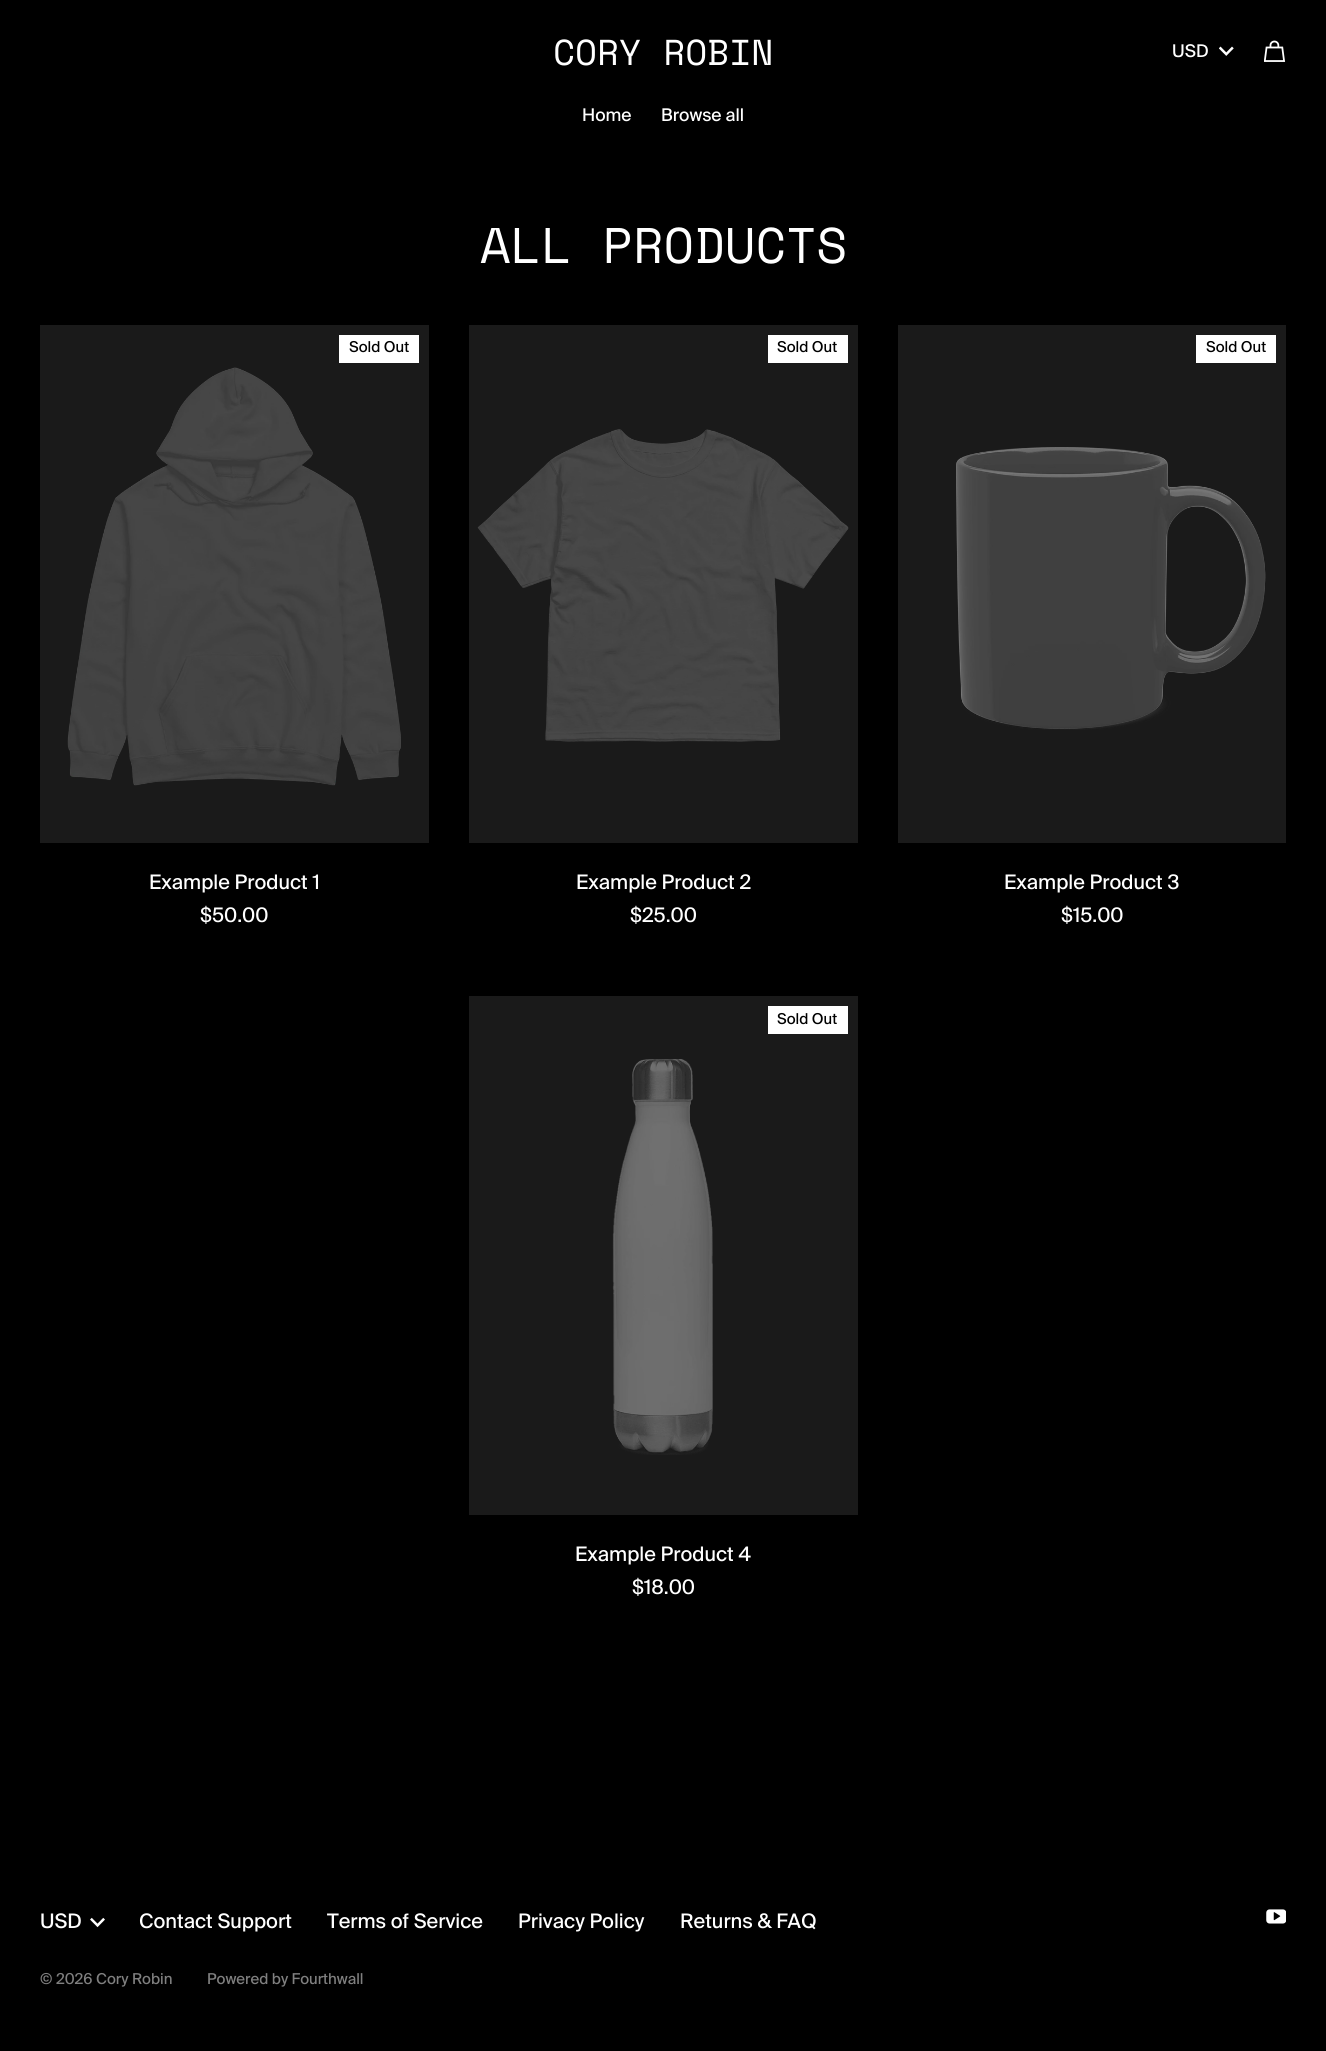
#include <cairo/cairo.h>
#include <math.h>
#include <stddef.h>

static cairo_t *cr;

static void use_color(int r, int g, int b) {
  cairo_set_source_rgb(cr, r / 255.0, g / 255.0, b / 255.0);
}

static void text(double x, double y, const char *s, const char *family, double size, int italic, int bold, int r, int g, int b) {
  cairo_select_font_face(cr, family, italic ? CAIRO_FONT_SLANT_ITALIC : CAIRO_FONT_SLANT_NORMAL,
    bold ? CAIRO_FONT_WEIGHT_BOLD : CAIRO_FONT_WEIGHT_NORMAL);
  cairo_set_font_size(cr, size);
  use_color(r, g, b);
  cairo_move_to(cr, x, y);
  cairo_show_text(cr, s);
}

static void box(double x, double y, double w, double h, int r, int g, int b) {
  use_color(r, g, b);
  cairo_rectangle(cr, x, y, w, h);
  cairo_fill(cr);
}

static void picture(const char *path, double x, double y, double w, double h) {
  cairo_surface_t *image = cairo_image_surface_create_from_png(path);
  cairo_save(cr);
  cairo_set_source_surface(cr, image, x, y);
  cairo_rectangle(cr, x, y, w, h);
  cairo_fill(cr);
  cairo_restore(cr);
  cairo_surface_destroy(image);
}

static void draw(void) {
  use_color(0, 0, 0);
  cairo_paint(cr);
  picture("img_01.png", 1219, 46, 15, 10);
  picture("img_02.png", 1264, 40, 22, 22);
  box(40, 325, 389, 518, 26, 26, 26);
  box(339, 335, 80, 28, 255, 255, 255);
  picture("img_03.png", 67, 367, 334, 419);
  box(469, 325, 389, 518, 26, 26, 26);
  box(768, 335, 80, 28, 255, 255, 255);
  picture("img_04.png", 477, 429, 372, 313);
  box(898, 325, 388, 518, 26, 26, 26);
  box(1196, 335, 80, 28, 255, 255, 255);
  picture("img_05.png", 956, 447, 310, 283);
  box(469, 996, 389, 519, 26, 26, 26);
  box(768, 1006, 80, 28, 255, 255, 255);
  picture("img_06.png", 612, 1059, 101, 396);
  picture("img_07.png", 90, 1917, 15, 11);
  picture("img_08.png", 1266, 1909, 20, 15);
  text(553, 65, "CORY ROBIN", "Space Mono", 36, 0, 0, 255, 255, 255);
  text(1172, 57, "USD", "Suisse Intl", 17.5, 0, 0, 255, 255, 255);
  text(582, 121, "Home", "Suisse Intl", 17.5, 0, 0, 255, 255, 255);
  text(661, 121, "Browse all", "Suisse Intl", 17.5, 0, 0, 255, 255, 255);
  text(480, 263, "ALL PRODUCTS", "Space Mono", 50, 0, 0, 255, 255, 255);
  text(349, 352, "Sold Out", "Suisse Intl", 15, 0, 0, 0, 0, 0);
  text(149, 889, "Example Product 1", "Suisse Intl", 20, 0, 0, 255, 255, 255);
  text(200, 922, "$50.00", "Suisse Intl", 20, 0, 0, 255, 255, 255);
  text(777, 352, "Sold Out", "Suisse Intl", 15, 0, 0, 0, 0, 0);
  text(576, 889, "Example Product 2", "Suisse Intl", 20, 0, 0, 255, 255, 255);
  text(630, 922, "$25.00", "Suisse Intl", 20, 0, 0, 255, 255, 255);
  text(1206, 352, "Sold Out", "Suisse Intl", 15, 0, 0, 0, 0, 0);
  text(1004, 889, "Example Product 3", "Suisse Intl", 20, 0, 0, 255, 255, 255);
  text(1061, 922, "$15.00", "Suisse Intl", 20, 0, 0, 255, 255, 255);
  text(777, 1024, "Sold Out", "Suisse Intl", 15, 0, 0, 0, 0, 0);
  text(575, 1561, "Example Product 4", "Suisse Intl", 20, 0, 0, 255, 255, 255);
  text(632, 1594, "$18.00", "Suisse Intl", 20, 0, 0, 255, 255, 255);
  text(40, 1928, "USD", "Suisse Intl", 20, 0, 0, 255, 255, 255);
  text(139, 1928, "Contact Support", "Suisse Intl", 20, 0, 0, 255, 255, 255);
  text(327, 1928, "Terms of Service", "Suisse Intl", 20, 0, 0, 255, 255, 255);
  text(518, 1928, "Privacy Policy", "Suisse Intl", 20, 0, 0, 255, 255, 255);
  text(680, 1928, "Returns & FAQ", "Suisse Intl", 20, 0, 0, 255, 255, 255);
  text(40, 1984, "© 2026 Cory Robin", "Suisse Intl", 15, 0, 0, 128, 128, 128);
  text(207, 1984, "Powered by Fourthwall", "Suisse Intl", 15, 0, 0, 128, 128, 128);
}

int main(void) {
  cairo_surface_t *surface = cairo_image_surface_create(CAIRO_FORMAT_RGB24, 1326, 2051);
  cr = cairo_create(surface);
  cairo_font_options_t *options = cairo_font_options_create();
  cairo_font_options_set_hint_metrics(options, CAIRO_HINT_METRICS_OFF);
  cairo_font_options_set_hint_style(options, CAIRO_HINT_STYLE_NONE);
  cairo_set_font_options(cr, options);
  cairo_set_miter_limit(cr, 4);
  draw();
  cairo_surface_write_to_png(surface, "out.png");
  cairo_font_options_destroy(options);
  cairo_destroy(cr);
  cairo_surface_destroy(surface);
  return 0;
}
